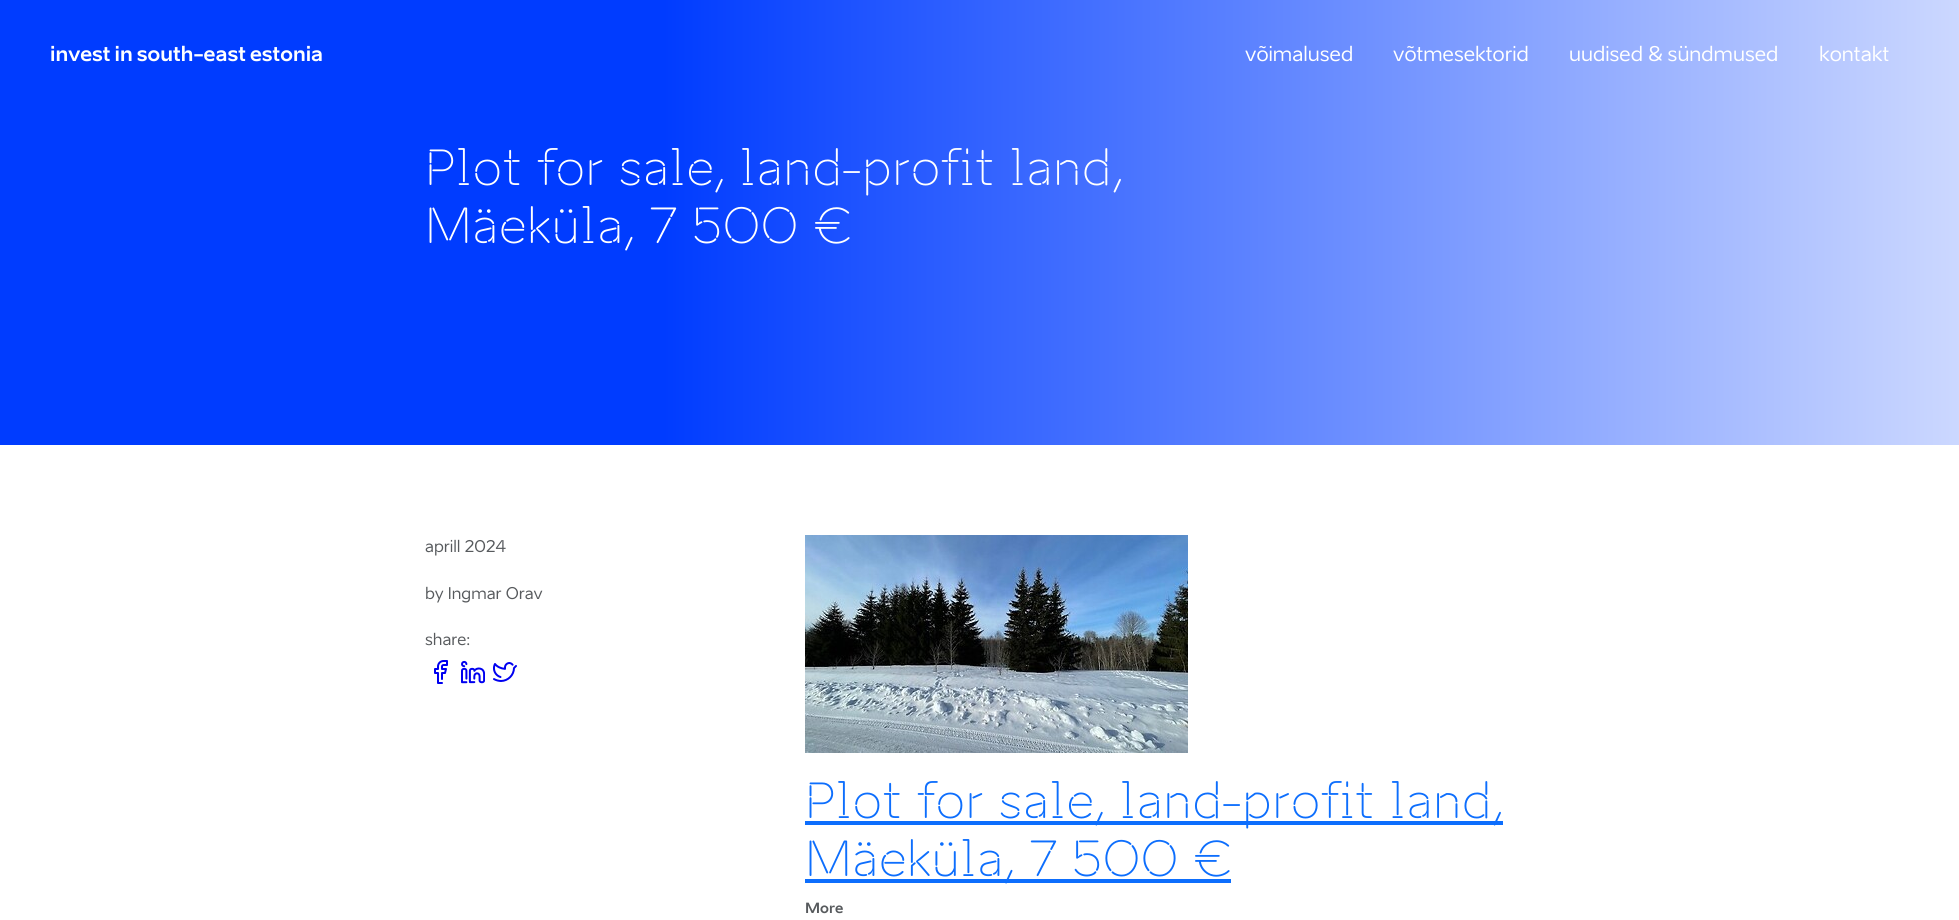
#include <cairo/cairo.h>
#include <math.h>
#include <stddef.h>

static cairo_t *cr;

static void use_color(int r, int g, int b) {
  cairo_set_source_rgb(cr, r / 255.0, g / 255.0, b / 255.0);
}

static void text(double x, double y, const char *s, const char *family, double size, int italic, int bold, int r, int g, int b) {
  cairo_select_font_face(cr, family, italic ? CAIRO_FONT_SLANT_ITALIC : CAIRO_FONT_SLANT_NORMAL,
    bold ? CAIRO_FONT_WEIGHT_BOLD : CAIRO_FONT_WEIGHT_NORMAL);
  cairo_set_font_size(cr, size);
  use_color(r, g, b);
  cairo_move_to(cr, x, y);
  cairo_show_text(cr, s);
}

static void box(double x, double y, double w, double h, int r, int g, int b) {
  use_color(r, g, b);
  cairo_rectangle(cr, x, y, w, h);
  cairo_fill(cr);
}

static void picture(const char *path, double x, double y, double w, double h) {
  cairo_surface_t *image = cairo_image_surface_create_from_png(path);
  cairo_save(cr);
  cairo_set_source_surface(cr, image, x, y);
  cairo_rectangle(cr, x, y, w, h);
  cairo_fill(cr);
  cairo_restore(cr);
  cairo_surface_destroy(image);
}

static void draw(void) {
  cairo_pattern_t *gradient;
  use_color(255, 255, 255);
  cairo_paint(cr);
  gradient = cairo_pattern_create_linear(0, 223, 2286, 222);
  cairo_pattern_add_color_stop_rgba(gradient, 0.29, 0, 0.235, 1, 1);
  cairo_pattern_add_color_stop_rgba(gradient, 1, 1, 1, 1, 1);
  cairo_set_source(cr, gradient);
  cairo_pattern_destroy(gradient);
  cairo_rectangle(cr, 0, 0, 1959, 445);
  cairo_fill(cr);
  picture("img_01.png", 434, 660, 14, 24);
  picture("img_02.png", 461, 660, 24, 24);
  picture("img_03.png", 493, 662, 24, 20);
  picture("img_04.png", 805, 535, 383, 218);
  box(805, 821, 698, 4, 13, 110, 253);
  box(805, 879, 426, 4, 13, 110, 253);
  text(50, 61, "invest in south-east estonia", "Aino", 20, 0, 1, 255, 255, 255);
  text(1245, 61, "võimalused", "Aino", 20, 0, 0, 255, 255, 255);
  text(1393, 61, "võtmesektorid", "Aino", 20, 0, 0, 255, 255, 255);
  text(1569, 61, "uudised & sündmused", "Aino", 20, 0, 0, 255, 255, 255);
  text(1819, 61, "kontakt", "Aino", 20, 0, 0, 255, 255, 255);
  text(425, 185, "Plot for sale, land-profit land,", "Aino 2", 48, 0, 0, 255, 255, 255);
  text(425, 243, "Mäeküla, 7 500 €", "Aino 2", 48, 0, 0, 255, 255, 255);
  text(425, 552, "aprill 2024", "Aino", 16, 0, 0, 87, 90, 93);
  text(425, 599, "by Ingmar Orav", "Aino", 16, 0, 0, 87, 90, 93);
  text(425, 645, "share:", "Aino", 16, 0, 0, 87, 90, 93);
  text(805, 818, "Plot for sale, land-profit land,", "Aino 2", 48, 0, 0, 13, 110, 253);
  text(805, 876, "Mäeküla, 7 500 €", "Aino 2", 48, 0, 0, 13, 110, 253);
  text(805, 913, "More", "Aino", 14, 0, 1, 87, 90, 93);
}

int main(void) {
  cairo_surface_t *surface = cairo_image_surface_create(CAIRO_FORMAT_RGB24, 1959, 920);
  cr = cairo_create(surface);
  cairo_font_options_t *options = cairo_font_options_create();
  cairo_font_options_set_hint_metrics(options, CAIRO_HINT_METRICS_OFF);
  cairo_font_options_set_hint_style(options, CAIRO_HINT_STYLE_NONE);
  cairo_set_font_options(cr, options);
  cairo_set_miter_limit(cr, 4);
  draw();
  cairo_surface_write_to_png(surface, "out.png");
  cairo_font_options_destroy(options);
  cairo_destroy(cr);
  cairo_surface_destroy(surface);
  return 0;
}
